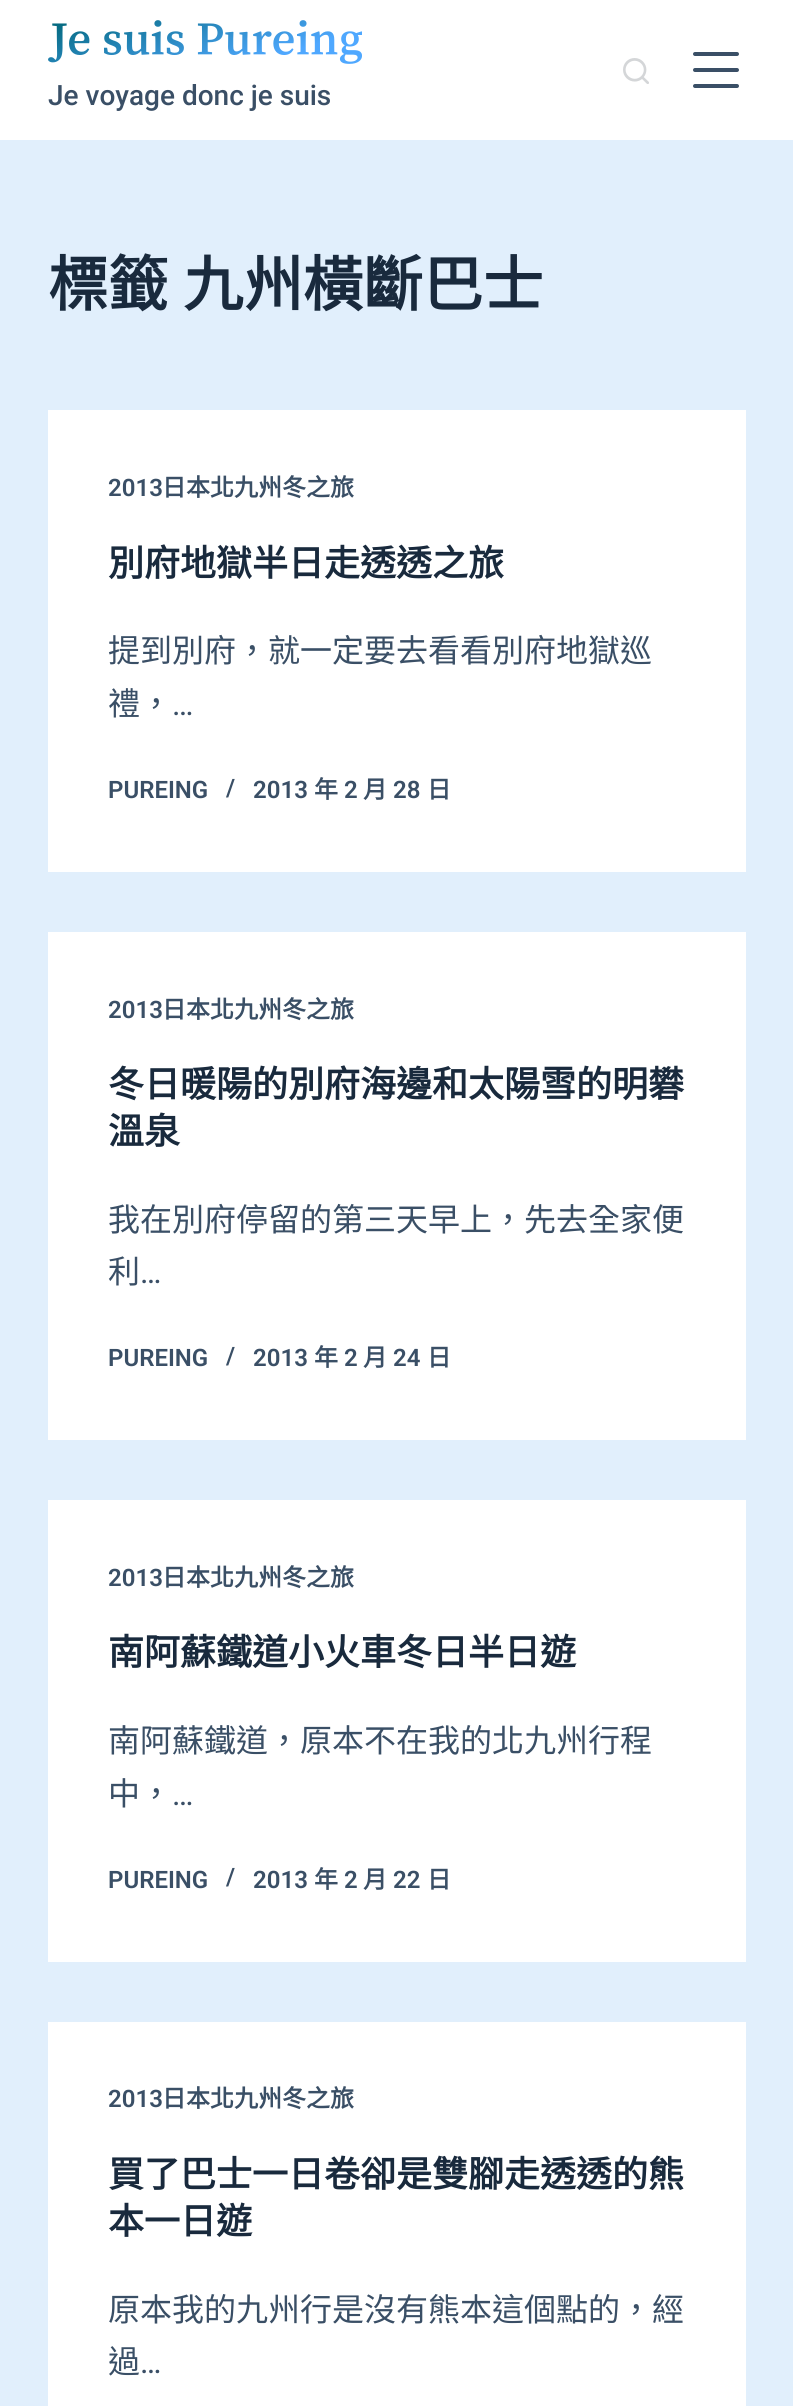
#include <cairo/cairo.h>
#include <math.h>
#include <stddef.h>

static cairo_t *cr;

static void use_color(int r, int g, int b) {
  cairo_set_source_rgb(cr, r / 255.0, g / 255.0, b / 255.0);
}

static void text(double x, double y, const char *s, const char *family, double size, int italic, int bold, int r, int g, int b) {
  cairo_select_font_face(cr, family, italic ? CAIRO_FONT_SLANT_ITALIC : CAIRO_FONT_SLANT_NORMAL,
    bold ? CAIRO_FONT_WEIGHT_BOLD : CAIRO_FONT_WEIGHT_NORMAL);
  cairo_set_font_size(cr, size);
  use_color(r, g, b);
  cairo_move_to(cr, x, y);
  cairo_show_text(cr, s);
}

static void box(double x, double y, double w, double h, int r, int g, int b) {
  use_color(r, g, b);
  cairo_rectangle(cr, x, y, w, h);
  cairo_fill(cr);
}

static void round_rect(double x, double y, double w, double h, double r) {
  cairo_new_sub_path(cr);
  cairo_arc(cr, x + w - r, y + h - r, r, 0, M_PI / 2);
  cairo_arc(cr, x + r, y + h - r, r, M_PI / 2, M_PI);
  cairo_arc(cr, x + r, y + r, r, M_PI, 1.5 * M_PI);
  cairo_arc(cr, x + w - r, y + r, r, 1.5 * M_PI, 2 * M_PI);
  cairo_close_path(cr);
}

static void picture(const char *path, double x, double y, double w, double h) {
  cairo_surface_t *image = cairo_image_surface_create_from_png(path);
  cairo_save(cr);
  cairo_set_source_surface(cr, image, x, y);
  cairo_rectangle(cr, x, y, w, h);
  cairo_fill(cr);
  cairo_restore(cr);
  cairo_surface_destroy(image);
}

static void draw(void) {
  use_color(225, 239, 252);
  cairo_paint(cr);
  box(0, 0, 793, 140, 255, 255, 255);
  picture("img_01.png", 623, 58, 26, 26);
  use_color(58, 79, 102);
  round_rect(693, 52, 46, 4, 2);
  cairo_fill(cr);
  round_rect(693, 68, 46, 4, 2);
  cairo_fill(cr);
  round_rect(693, 84, 46, 4, 2);
  cairo_fill(cr);
  picture("img_02.png", 48, 20, 314, 44);
  box(48, 410, 698, 462, 255, 255, 255);
  box(48, 932, 698, 508, 255, 255, 255);
  box(48, 1500, 698, 462, 255, 255, 255);
  box(48, 2022, 698, 384, 255, 255, 255);
  text(48, 105, "Je voyage donc je suis", "Roboto Medium", 28, 0, 0, 58, 79, 102);
  text(48, 306, "標籤", "Noto Sans CJK TC", 60, 0, 1, 25, 42, 61);
  text(183, 306, "九州橫斷巴士", "Noto Sans CJK TC", 60, 0, 1, 25, 42, 61);
  text(108, 496, "2013", "Roboto SemiBold", 24, 0, 0, 58, 79, 102);
  text(162, 496, "日本北九州冬之旅", "Noto Sans CJK TC", 24, 0, 1, 58, 79, 102);
  text(108, 576, "別府地獄半日走透透之旅", "Noto Sans CJK TC", 36, 0, 1, 25, 42, 61);
  text(108, 662, "提到別府，就一定要去看看別府地獄巡", "Noto Sans CJK TC", 32, 0, 0, 58, 79, 102);
  text(108, 715, "禮，", "Noto Sans CJK TC", 32, 0, 0, 58, 79, 102);
  text(172, 715, "…", "Roboto", 32, 0, 0, 58, 79, 102);
  text(108, 798, "PUREING", "Roboto SemiBold", 24, 0, 0, 58, 79, 102);
  text(226, 796, "/", "Roboto SemiBold", 24, 0, 0, 58, 79, 102);
  text(253, 798, "2013", "Roboto SemiBold", 24, 0, 0, 58, 79, 102);
  text(314, 798, "年", "Noto Sans CJK TC", 24, 0, 1, 58, 79, 102);
  text(344, 798, "2", "Roboto SemiBold", 24, 0, 0, 58, 79, 102);
  text(363, 798, "月", "Noto Sans CJK TC", 24, 0, 1, 58, 79, 102);
  text(393, 798, "28", "Roboto SemiBold", 24, 0, 0, 58, 79, 102);
  text(427, 798, "日", "Noto Sans CJK TC", 24, 0, 1, 58, 79, 102);
  text(108, 1018, "2013", "Roboto SemiBold", 24, 0, 0, 58, 79, 102);
  text(162, 1018, "日本北九州冬之旅", "Noto Sans CJK TC", 24, 0, 1, 58, 79, 102);
  text(108, 1097, "冬日暖陽的別府海邊和太陽雪的明礬", "Noto Sans CJK TC", 36, 0, 1, 25, 42, 61);
  text(108, 1144, "溫泉", "Noto Sans CJK TC", 36, 0, 1, 25, 42, 61);
  text(108, 1231, "我在別府停留的第三天早上，先去全家便", "Noto Sans CJK TC", 32, 0, 0, 58, 79, 102);
  text(108, 1283, "利", "Noto Sans CJK TC", 32, 0, 0, 58, 79, 102);
  text(140, 1283, "…", "Roboto", 32, 0, 0, 58, 79, 102);
  text(108, 1366, "PUREING", "Roboto SemiBold", 24, 0, 0, 58, 79, 102);
  text(226, 1364, "/", "Roboto SemiBold", 24, 0, 0, 58, 79, 102);
  text(253, 1366, "2013", "Roboto SemiBold", 24, 0, 0, 58, 79, 102);
  text(314, 1366, "年", "Noto Sans CJK TC", 24, 0, 1, 58, 79, 102);
  text(344, 1366, "2", "Roboto SemiBold", 24, 0, 0, 58, 79, 102);
  text(363, 1366, "月", "Noto Sans CJK TC", 24, 0, 1, 58, 79, 102);
  text(393, 1366, "24", "Roboto SemiBold", 24, 0, 0, 58, 79, 102);
  text(427, 1366, "日", "Noto Sans CJK TC", 24, 0, 1, 58, 79, 102);
  text(108, 1586, "2013", "Roboto SemiBold", 24, 0, 0, 58, 79, 102);
  text(162, 1586, "日本北九州冬之旅", "Noto Sans CJK TC", 24, 0, 1, 58, 79, 102);
  text(108, 1665, "南阿蘇鐵道小火車冬日半日遊", "Noto Sans CJK TC", 36, 0, 1, 25, 42, 61);
  text(108, 1752, "南阿蘇鐵道，原本不在我的北九州行程", "Noto Sans CJK TC", 32, 0, 0, 58, 79, 102);
  text(108, 1805, "中，", "Noto Sans CJK TC", 32, 0, 0, 58, 79, 102);
  text(172, 1805, "…", "Roboto", 32, 0, 0, 58, 79, 102);
  text(108, 1888, "PUREING", "Roboto SemiBold", 24, 0, 0, 58, 79, 102);
  text(226, 1885, "/", "Roboto SemiBold", 24, 0, 0, 58, 79, 102);
  text(253, 1888, "2013", "Roboto SemiBold", 24, 0, 0, 58, 79, 102);
  text(314, 1888, "年", "Noto Sans CJK TC", 24, 0, 1, 58, 79, 102);
  text(344, 1888, "2", "Roboto SemiBold", 24, 0, 0, 58, 79, 102);
  text(363, 1888, "月", "Noto Sans CJK TC", 24, 0, 1, 58, 79, 102);
  text(393, 1888, "22", "Roboto SemiBold", 24, 0, 0, 58, 79, 102);
  text(427, 1888, "日", "Noto Sans CJK TC", 24, 0, 1, 58, 79, 102);
  text(108, 2107, "2013", "Roboto SemiBold", 24, 0, 0, 58, 79, 102);
  text(162, 2107, "日本北九州冬之旅", "Noto Sans CJK TC", 24, 0, 1, 58, 79, 102);
  text(108, 2187, "買了巴士一日卷卻是雙腳走透透的熊", "Noto Sans CJK TC", 36, 0, 1, 25, 42, 61);
  text(108, 2234, "本一日遊", "Noto Sans CJK TC", 36, 0, 1, 25, 42, 61);
  text(108, 2321, "原本我的九州行是沒有熊本這個點的，經", "Noto Sans CJK TC", 32, 0, 0, 58, 79, 102);
  text(108, 2373, "過", "Noto Sans CJK TC", 32, 0, 0, 58, 79, 102);
  text(140, 2373, "…", "Roboto", 32, 0, 0, 58, 79, 102);
}

int main(void) {
  cairo_surface_t *surface = cairo_image_surface_create(CAIRO_FORMAT_RGB24, 793, 2406);
  cr = cairo_create(surface);
  cairo_font_options_t *options = cairo_font_options_create();
  cairo_font_options_set_hint_metrics(options, CAIRO_HINT_METRICS_OFF);
  cairo_font_options_set_hint_style(options, CAIRO_HINT_STYLE_NONE);
  cairo_set_font_options(cr, options);
  cairo_set_miter_limit(cr, 4);
  draw();
  cairo_surface_write_to_png(surface, "out.png");
  cairo_font_options_destroy(options);
  cairo_destroy(cr);
  cairo_surface_destroy(surface);
  return 0;
}
